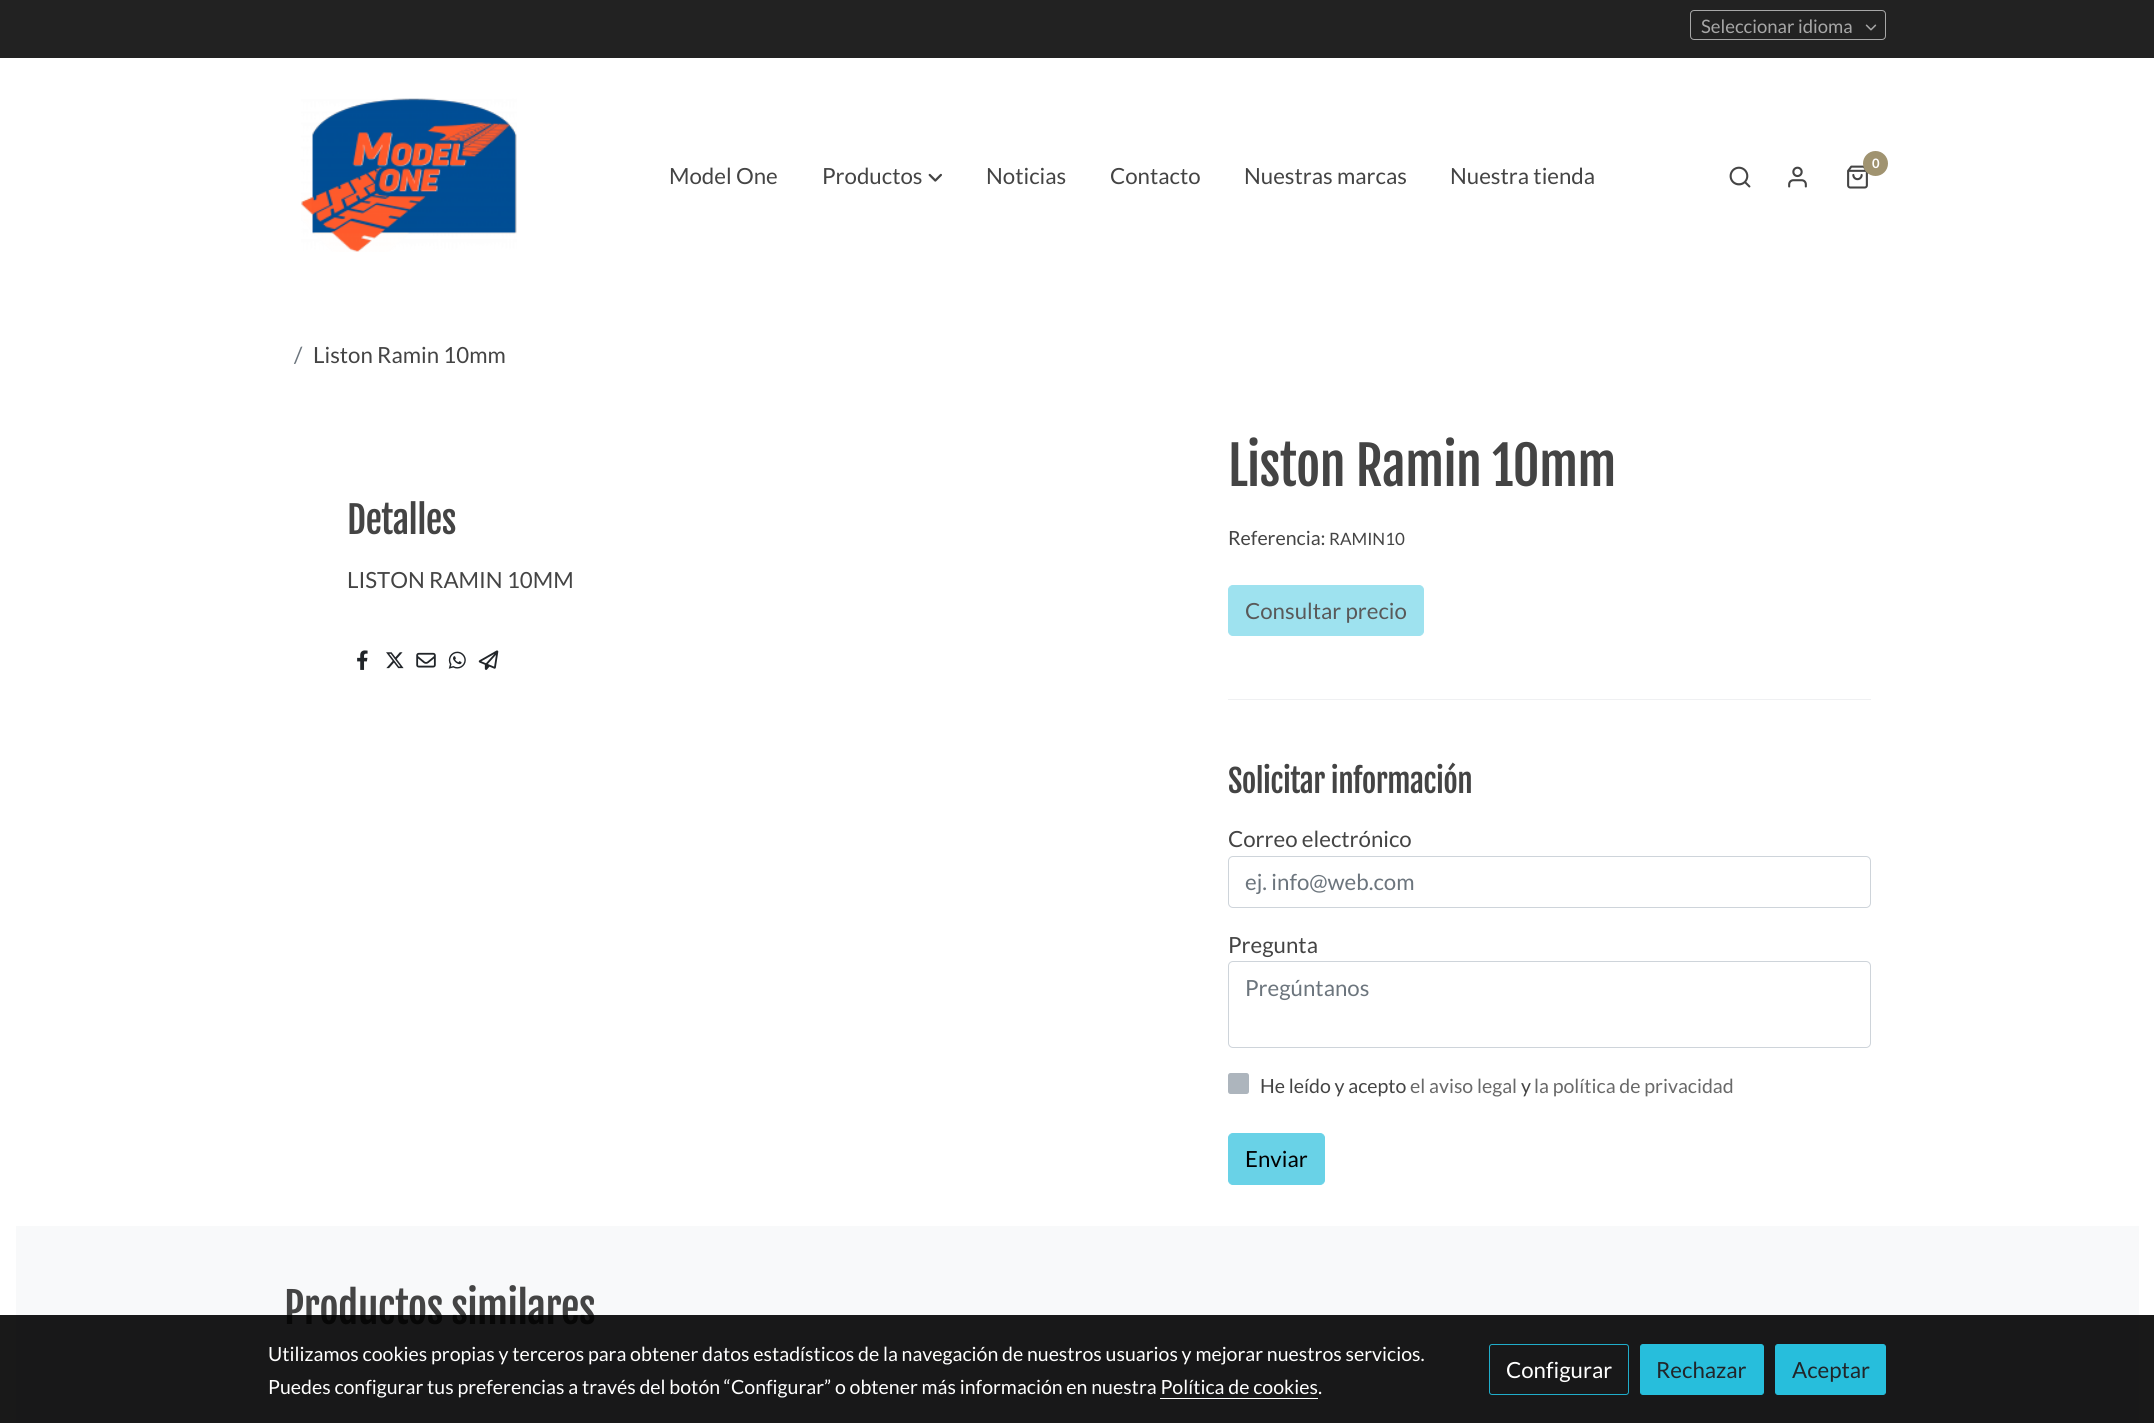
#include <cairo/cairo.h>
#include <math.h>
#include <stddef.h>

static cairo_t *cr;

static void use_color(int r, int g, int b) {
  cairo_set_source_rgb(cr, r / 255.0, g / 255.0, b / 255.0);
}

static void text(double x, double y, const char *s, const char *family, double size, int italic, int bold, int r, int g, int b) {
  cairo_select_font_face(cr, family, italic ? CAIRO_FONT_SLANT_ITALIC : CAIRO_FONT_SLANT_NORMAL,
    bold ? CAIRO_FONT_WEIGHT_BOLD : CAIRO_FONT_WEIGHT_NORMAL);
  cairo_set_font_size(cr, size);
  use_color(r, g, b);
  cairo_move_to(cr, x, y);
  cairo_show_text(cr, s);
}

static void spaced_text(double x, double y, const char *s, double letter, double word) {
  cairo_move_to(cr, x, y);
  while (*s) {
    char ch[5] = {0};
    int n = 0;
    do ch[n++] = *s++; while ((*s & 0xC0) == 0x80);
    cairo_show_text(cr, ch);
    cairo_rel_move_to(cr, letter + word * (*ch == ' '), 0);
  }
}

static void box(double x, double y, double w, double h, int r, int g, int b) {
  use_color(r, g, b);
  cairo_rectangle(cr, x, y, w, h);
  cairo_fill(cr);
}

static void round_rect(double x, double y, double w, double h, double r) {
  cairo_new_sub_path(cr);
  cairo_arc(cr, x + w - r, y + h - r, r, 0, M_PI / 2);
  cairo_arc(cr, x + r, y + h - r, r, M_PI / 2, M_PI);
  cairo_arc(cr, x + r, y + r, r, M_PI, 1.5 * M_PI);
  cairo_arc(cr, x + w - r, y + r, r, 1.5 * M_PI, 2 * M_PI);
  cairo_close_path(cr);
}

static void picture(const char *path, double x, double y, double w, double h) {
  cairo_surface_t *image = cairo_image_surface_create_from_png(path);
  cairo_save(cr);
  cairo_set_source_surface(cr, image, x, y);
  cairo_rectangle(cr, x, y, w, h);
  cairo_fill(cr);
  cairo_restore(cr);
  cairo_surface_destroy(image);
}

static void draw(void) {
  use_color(255, 255, 255);
  cairo_paint(cr);
  box(0, 0, 2154, 58, 34, 34, 34);
  round_rect(1690.5, 10.5, 195, 29, 3.5);
  use_color(167, 167, 167);
  cairo_set_line_width(cr, 1);
  cairo_stroke(cr);
  picture("img_01.png", 1865, 24, 12, 7);
  picture("img_02.png", 301, 98, 216, 154);
  picture("img_03.png", 1847, 165, 21, 24);
  use_color(160, 147, 112);
  cairo_arc(cr, 1875.5, 163.5, 12.5, 0, 2 * M_PI);
  cairo_fill(cr);
  picture("img_04.png", 1729, 166, 22, 22);
  picture("img_05.png", 1788, 166, 19, 22);
  picture("img_06.png", 928, 173, 14, 9);
  picture("img_07.png", 357, 650, 11, 20);
  picture("img_08.png", 386, 652, 18, 17);
  picture("img_09.png", 416, 652, 20, 16);
  picture("img_10.png", 448, 651, 18, 18);
  picture("img_11.png", 478, 650, 21, 20);
  use_color(158, 226, 239);
  round_rect(1228.5, 585.5, 195, 50, 4.5);
  cairo_fill_preserve(cr);
  cairo_stroke(cr);
  box(1228, 699, 643, 1, 239, 240, 242);
  round_rect(1228.5, 856.5, 642, 51, 4.5);
  use_color(206, 212, 218);
  cairo_stroke(cr);
  round_rect(1228.5, 961.5, 642, 86, 4.5);
  cairo_stroke(cr);
  use_color(173, 181, 189);
  round_rect(1228, 1073, 21, 21, 2.5);
  cairo_fill(cr);
  use_color(105, 210, 231);
  round_rect(1228.5, 1133.5, 96, 51, 4.5);
  cairo_fill_preserve(cr);
  cairo_stroke(cr);
  box(16, 1226, 2123, 197, 248, 249, 250);
  text(1701, 33, "Seleccionar idioma", "Lato", 18.5, 0, 0, 167, 167, 167);
  text(1872, 168, "0", "Lato", 13, 0, 1, 255, 255, 255);
  text(669, 184, "Model One", "Lato", 22.25, 0, 0, 68, 68, 68);
  text(822, 184, "Productos", "Lato", 22.25, 0, 0, 68, 68, 68);
  text(986, 184, "Noticias", "Lato", 22.25, 0, 0, 68, 68, 68);
  text(1110, 184, "Contacto", "Lato", 22.25, 0, 0, 68, 68, 68);
  text(1244, 184, "Nuestras marcas", "Lato", 22.25, 0, 0, 68, 68, 68);
  text(1450, 184, "Nuestra tienda", "Lato", 22.25, 0, 0, 68, 68, 68);
  text(294, 363, "/", "Lato", 22.25, 0, 0, 108, 117, 125);
  text(313, 363, "Liston Ramin 10mm", "Lato", 22.25, 0, 0, 68, 68, 68);
  cairo_select_font_face(cr, "Fjalla One", CAIRO_FONT_SLANT_NORMAL, CAIRO_FONT_WEIGHT_NORMAL);
  cairo_set_font_size(cr, 37);
  spaced_text(347, 534, "Detalles", -0.6, 0);
  text(347, 588, "LISTON RAMIN 10MM", "Lato", 22.25, 0, 0, 68, 68, 68);
  cairo_select_font_face(cr, "Fjalla One", CAIRO_FONT_SLANT_NORMAL, CAIRO_FONT_WEIGHT_NORMAL);
  cairo_set_font_size(cr, 52.5);
  spaced_text(1228, 486, "Liston Ramin 10mm", -0.6, 0);
  text(1228, 545, "Referencia:", "Lato", 19.52, 0, 0, 68, 68, 68);
  text(1329, 545, "RAMIN10", "Lato", 17, 0, 0, 68, 68, 68);
  text(1245, 619, "Consultar precio", "Lato", 22.25, 0, 0, 89, 89, 89);
  cairo_select_font_face(cr, "Fjalla One", CAIRO_FONT_SLANT_NORMAL, CAIRO_FONT_WEIGHT_NORMAL);
  cairo_set_font_size(cr, 31.5);
  use_color(68, 68, 68);
  spaced_text(1228, 793, "Solicitar información", -0.6, 0);
  text(1228, 847, "Correo electrónico", "Lato", 22.25, 0, 0, 68, 68, 68);
  text(1245, 890, "ej. info@web.com", "Lato", 22.25, 0, 0, 108, 117, 125);
  text(1228, 953, "Pregunta", "Lato", 22.25, 0, 0, 68, 68, 68);
  text(1245, 996, "Pregúntanos", "Lato", 22.25, 0, 0, 108, 117, 125);
  text(1260, 1093, "He leído y acepto", "Lato", 19.52, 0, 0, 68, 68, 68);
  text(1410, 1093, "el aviso legal", "Lato", 19.52, 0, 0, 105, 105, 105);
  text(1521, 1093, "y", "Lato", 19.52, 0, 0, 68, 68, 68);
  text(1534, 1093, "la política de privacidad", "Lato", 19.52, 0, 0, 105, 105, 105);
  text(1245, 1167, "Enviar", "Lato", 22.25, 0, 0, 0, 0, 0);
  cairo_select_font_face(cr, "Fjalla One", CAIRO_FONT_SLANT_NORMAL, CAIRO_FONT_WEIGHT_NORMAL);
  cairo_set_font_size(cr, 42);
  use_color(68, 68, 68);
  spaced_text(284, 1324, "Productos similares", -0.6, 0);
  cairo_set_source_rgba(cr, 0, 0, 0, 0.9);
  cairo_rectangle(cr, 0, 1315, 2154, 108);
  cairo_fill(cr);
  text(268, 1361, "Utilizamos cookies propias y terceros para obtener datos estadísticos de la navegación de nuestros usuarios y mejorar nuestros servicios.", "Lato", 19.52, 0, 0, 255, 255, 255);
  text(268, 1394, "Puedes configurar tus preferencias a través del botón “Configurar” o obtener más información en nuestra Política de cookies.", "Lato", 19.52, 0, 0, 255, 255, 255);
  box(1160, 1398, 158, 1, 255, 255, 255);
  round_rect(1489.5, 1344.5, 139, 50, 2.5);
  use_color(32, 173, 202);
  cairo_stroke(cr);
  text(1506, 1378, "Configurar", "Lato", 22.25, 0, 0, 255, 255, 255);
  use_color(39, 190, 220);
  round_rect(1640.5, 1344.5, 123, 50, 2.5);
  cairo_fill_preserve(cr);
  cairo_stroke(cr);
  text(1656, 1378, "Rechazar", "Lato", 22.25, 0, 0, 33, 37, 41);
  use_color(39, 190, 220);
  round_rect(1775.5, 1344.5, 110, 50, 2.5);
  cairo_fill_preserve(cr);
  cairo_stroke(cr);
  text(1792, 1378, "Aceptar", "Lato", 22.25, 0, 0, 33, 37, 41);
}

int main(void) {
  cairo_surface_t *surface = cairo_image_surface_create(CAIRO_FORMAT_RGB24, 2154, 1423);
  cr = cairo_create(surface);
  cairo_font_options_t *options = cairo_font_options_create();
  cairo_font_options_set_hint_metrics(options, CAIRO_HINT_METRICS_OFF);
  cairo_font_options_set_hint_style(options, CAIRO_HINT_STYLE_NONE);
  cairo_set_font_options(cr, options);
  cairo_set_miter_limit(cr, 4);
  draw();
  cairo_surface_write_to_png(surface, "out.png");
  cairo_font_options_destroy(options);
  cairo_destroy(cr);
  cairo_surface_destroy(surface);
  return 0;
}
